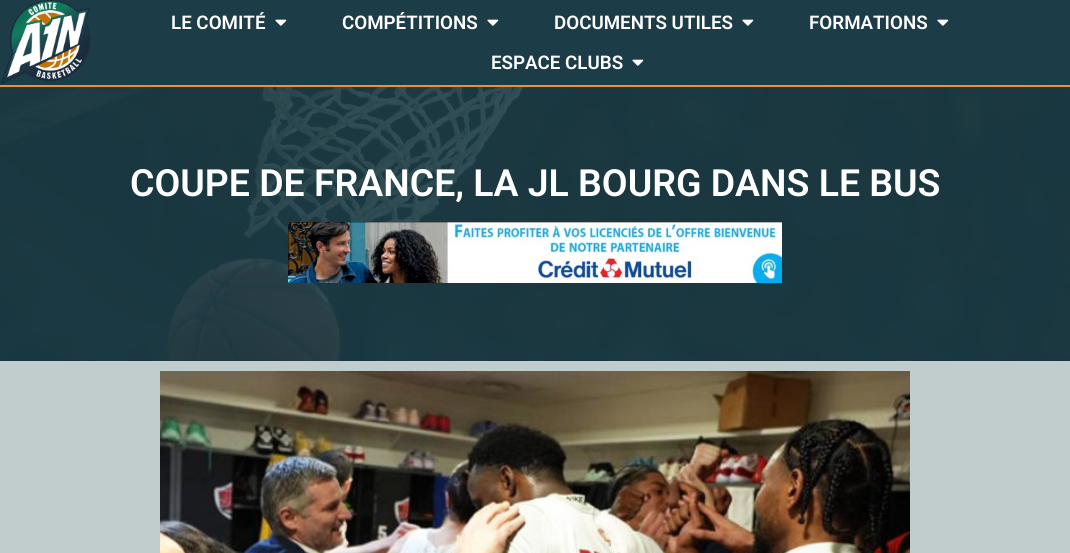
#include <cairo/cairo.h>
#include <math.h>
#include <stddef.h>

static cairo_t *cr;

static void use_color(int r, int g, int b) {
  cairo_set_source_rgb(cr, r / 255.0, g / 255.0, b / 255.0);
}

static void text(double x, double y, const char *s, const char *family, double size, int italic, int bold, int r, int g, int b) {
  cairo_select_font_face(cr, family, italic ? CAIRO_FONT_SLANT_ITALIC : CAIRO_FONT_SLANT_NORMAL,
    bold ? CAIRO_FONT_WEIGHT_BOLD : CAIRO_FONT_WEIGHT_NORMAL);
  cairo_set_font_size(cr, size);
  use_color(r, g, b);
  cairo_move_to(cr, x, y);
  cairo_show_text(cr, s);
}

static void box(double x, double y, double w, double h, int r, int g, int b) {
  use_color(r, g, b);
  cairo_rectangle(cr, x, y, w, h);
  cairo_fill(cr);
}

static void picture(const char *path, double x, double y, double w, double h) {
  cairo_surface_t *image = cairo_image_surface_create_from_png(path);
  cairo_save(cr);
  cairo_set_source_surface(cr, image, x, y);
  cairo_rectangle(cr, x, y, w, h);
  cairo_fill(cr);
  cairo_restore(cr);
  cairo_surface_destroy(image);
}

static void draw(void) {
  use_color(193, 205, 204);
  cairo_paint(cr);
  box(0, 0, 1070, 85, 28, 61, 71);
  box(0, 85, 1070, 2, 235, 146, 45);
  picture("img_01.png", 0, 0, 90, 85);
  picture("img_02.png", 275, 19, 12, 7);
  picture("img_02.png", 487, 19, 12, 7);
  picture("img_02.png", 742, 19, 12, 7);
  picture("img_02.png", 937, 19, 12, 7);
  picture("img_02.png", 632, 59, 12, 7);
  picture("img_03.png", 0, 87, 1070, 274);
  picture("img_04.png", 288, 222, 494, 61);
  picture("img_05.png", 160, 371, 750, 182);
  text(171, 29, "LE COMITÉ", "Roboto SemiBold", 18.75, 0, 0, 255, 255, 255);
  text(342, 29, "COMPÉTITIONS", "Roboto SemiBold", 18.75, 0, 0, 255, 255, 255);
  text(554, 29, "DOCUMENTS UTILES", "Roboto SemiBold", 18.75, 0, 0, 255, 255, 255);
  text(809, 29, "FORMATIONS", "Roboto SemiBold", 18.75, 0, 0, 255, 255, 255);
  text(491, 69, "ESPACE CLUBS", "Roboto SemiBold", 18.75, 0, 0, 255, 255, 255);
  text(130, 196, "COUPE DE FRANCE, LA JL BOURG DANS LE BUS", "Roboto SemiBold", 37.4, 0, 0, 255, 255, 255);
}

int main(void) {
  cairo_surface_t *surface = cairo_image_surface_create(CAIRO_FORMAT_RGB24, 1070, 553);
  cr = cairo_create(surface);
  cairo_font_options_t *options = cairo_font_options_create();
  cairo_font_options_set_hint_metrics(options, CAIRO_HINT_METRICS_OFF);
  cairo_font_options_set_hint_style(options, CAIRO_HINT_STYLE_NONE);
  cairo_set_font_options(cr, options);
  cairo_set_miter_limit(cr, 4);
  draw();
  cairo_surface_write_to_png(surface, "out.png");
  cairo_font_options_destroy(options);
  cairo_destroy(cr);
  cairo_surface_destroy(surface);
  return 0;
}
